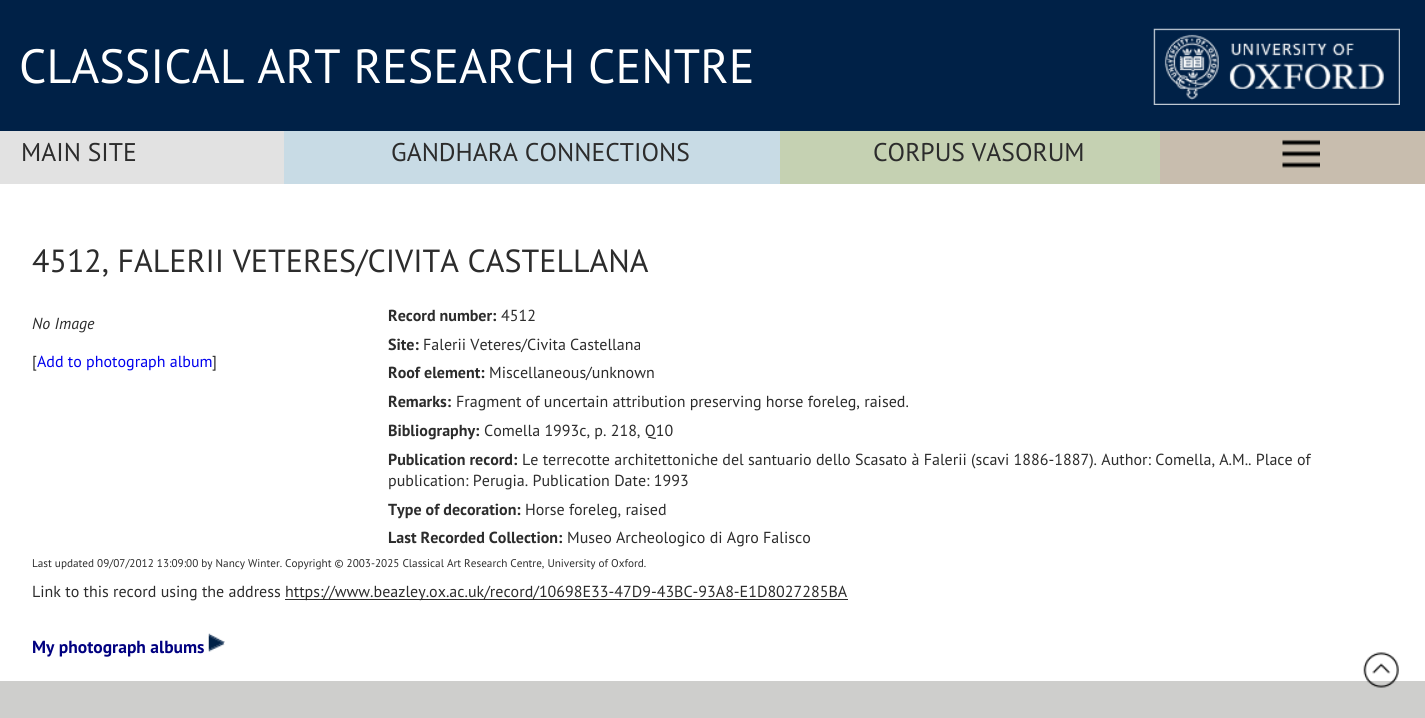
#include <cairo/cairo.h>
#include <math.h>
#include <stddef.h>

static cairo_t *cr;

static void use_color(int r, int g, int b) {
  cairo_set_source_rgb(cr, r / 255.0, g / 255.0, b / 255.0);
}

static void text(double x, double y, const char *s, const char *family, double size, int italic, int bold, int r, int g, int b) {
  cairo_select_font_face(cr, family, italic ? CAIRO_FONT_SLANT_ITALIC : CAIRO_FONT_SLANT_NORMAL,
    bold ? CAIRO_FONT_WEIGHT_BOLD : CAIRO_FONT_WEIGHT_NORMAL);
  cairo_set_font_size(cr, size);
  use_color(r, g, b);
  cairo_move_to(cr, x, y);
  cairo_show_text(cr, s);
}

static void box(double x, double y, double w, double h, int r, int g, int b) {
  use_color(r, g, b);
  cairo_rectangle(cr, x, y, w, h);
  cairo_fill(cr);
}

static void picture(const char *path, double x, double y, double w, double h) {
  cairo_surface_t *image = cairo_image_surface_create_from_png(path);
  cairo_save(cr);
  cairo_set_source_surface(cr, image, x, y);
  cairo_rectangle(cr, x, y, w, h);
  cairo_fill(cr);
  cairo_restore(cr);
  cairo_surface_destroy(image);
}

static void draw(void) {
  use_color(255, 255, 255);
  cairo_paint(cr);
  box(0, 0, 1425, 131, 0, 33, 71);
  picture("img_01.png", 1153, 28, 247, 77);
  box(0, 131, 284, 53, 226, 226, 226);
  box(284, 131, 496, 53, 200, 219, 229);
  box(780, 131, 380, 53, 197, 209, 178);
  box(1160, 131, 265, 53, 200, 189, 174);
  picture("img_02.png", 1282, 139, 38, 29);
  box(285, 599, 563, 1, 44, 44, 44);
  picture("img_03.png", 208, 633, 17, 19);
  box(0, 681, 1425, 37, 206, 206, 204);
  picture("img_04.png", 1363, 652, 36, 36);
  text(19, 83, "CLASSICAL ART RESEARCH CENTRE", "PT Sans", 48, 0, 0, 255, 255, 255);
  text(21, 161, "MAIN SITE", "PT Sans", 25.6, 0, 0, 44, 44, 44);
  text(391, 161, "GANDHARA CONNECTIONS", "PT Sans", 25.6, 0, 0, 44, 44, 44);
  text(873, 161, "CORPUS VASORUM", "PT Sans", 25.6, 0, 0, 44, 44, 44);
  text(32, 272, "4512, FALERII VETERES/CIVITA CASTELLANA", "PT Sans", 32, 0, 0, 44, 44, 44);
  text(32, 329, "No Image", "PT Sans", 16, 1, 0, 44, 44, 44);
  text(32, 367, "[", "PT Sans", 16, 0, 0, 44, 44, 44);
  text(37, 367, "Add to photograph album", "PT Sans", 16, 0, 0, 0, 0, 238);
  text(212, 367, "]", "PT Sans", 16, 0, 0, 44, 44, 44);
  text(388, 321, "Record number:", "PT Sans", 16, 0, 1, 44, 44, 44);
  text(501, 321, "4512", "PT Sans", 16, 0, 0, 44, 44, 44);
  text(388, 350, "Site:", "PT Sans", 16, 0, 1, 44, 44, 44);
  text(423, 350, "Falerii Veteres/Civita Castellana", "PT Sans", 16, 0, 0, 44, 44, 44);
  text(388, 378, "Roof element:", "PT Sans", 16, 0, 1, 44, 44, 44);
  text(489, 378, "Miscellaneous/unknown", "PT Sans", 16, 0, 0, 44, 44, 44);
  text(388, 407, "Remarks:", "PT Sans", 16, 0, 1, 44, 44, 44);
  text(456, 407, "Fragment of uncertain attribution preserving horse foreleg, raised.", "PT Sans", 16, 0, 0, 44, 44, 44);
  text(388, 436, "Bibliography:", "PT Sans", 16, 0, 1, 44, 44, 44);
  text(484, 436, "Comella 1993c, p. 218, Q10", "PT Sans", 16, 0, 0, 44, 44, 44);
  text(388, 465, "Publication record:", "PT Sans", 16, 0, 1, 44, 44, 44);
  text(522, 465, "Le terrecotte architettoniche del santuario dello Scasato à Falerii (scavi 1886-1887). Author: Comella, A.M.. Place of", "PT Sans", 16, 0, 0, 44, 44, 44);
  text(388, 486, "publication: Perugia. Publication Date: 1993", "PT Sans", 16, 0, 0, 44, 44, 44);
  text(388, 515, "Type of decoration:", "PT Sans", 16, 0, 1, 44, 44, 44);
  text(525, 515, "Horse foreleg, raised", "PT Sans", 16, 0, 0, 44, 44, 44);
  text(388, 543, "Last Recorded Collection:", "PT Sans", 16, 0, 1, 44, 44, 44);
  text(567, 543, "Museo Archeologico di Agro Falisco", "PT Sans", 16, 0, 0, 44, 44, 44);
  text(32, 567, "Last updated 09/07/2012 13:09:00 by Nancy Winter. Copyright © 2003-2025 Classical Art Research Centre, University of Oxford.", "PT Sans", 11.2, 0, 0, 44, 44, 44);
  text(32, 597, "Link to this record using the address", "PT Sans", 16, 0, 0, 44, 44, 44);
  text(285, 597, "https://www.beazley.ox.ac.uk/record/10698E33-47D9-43BC-93A8-E1D8027285BA", "PT Sans", 16, 0, 0, 44, 44, 44);
  text(32, 653, "My photograph albums", "PT Sans", 17.5, 0, 1, 0, 0, 128);
}

int main(void) {
  cairo_surface_t *surface = cairo_image_surface_create(CAIRO_FORMAT_RGB24, 1425, 718);
  cr = cairo_create(surface);
  cairo_font_options_t *options = cairo_font_options_create();
  cairo_font_options_set_hint_metrics(options, CAIRO_HINT_METRICS_OFF);
  cairo_font_options_set_hint_style(options, CAIRO_HINT_STYLE_NONE);
  cairo_set_font_options(cr, options);
  cairo_set_miter_limit(cr, 4);
  draw();
  cairo_surface_write_to_png(surface, "out.png");
  cairo_font_options_destroy(options);
  cairo_destroy(cr);
  cairo_surface_destroy(surface);
  return 0;
}
